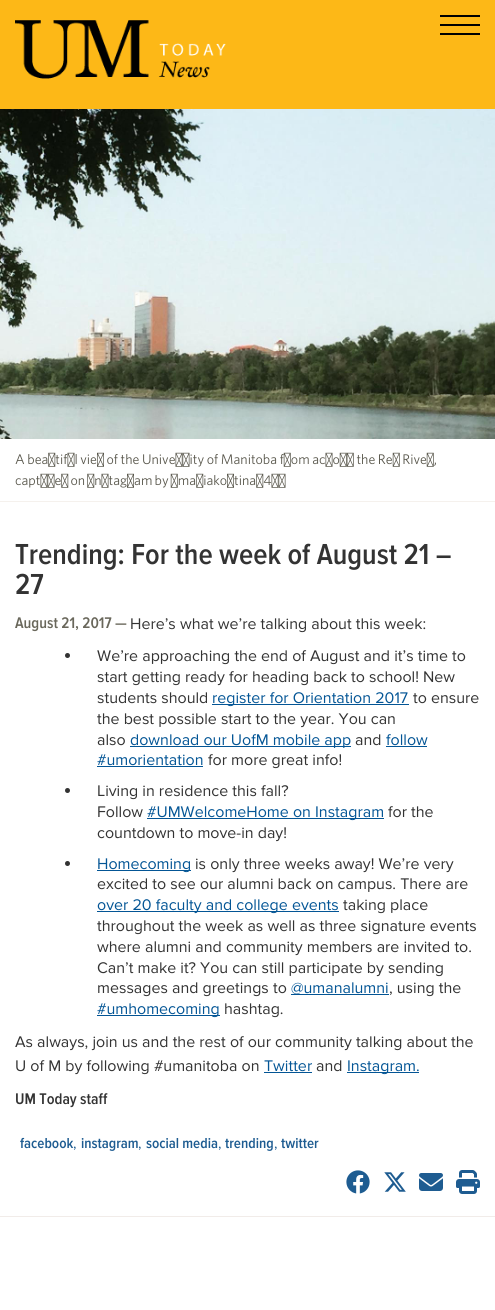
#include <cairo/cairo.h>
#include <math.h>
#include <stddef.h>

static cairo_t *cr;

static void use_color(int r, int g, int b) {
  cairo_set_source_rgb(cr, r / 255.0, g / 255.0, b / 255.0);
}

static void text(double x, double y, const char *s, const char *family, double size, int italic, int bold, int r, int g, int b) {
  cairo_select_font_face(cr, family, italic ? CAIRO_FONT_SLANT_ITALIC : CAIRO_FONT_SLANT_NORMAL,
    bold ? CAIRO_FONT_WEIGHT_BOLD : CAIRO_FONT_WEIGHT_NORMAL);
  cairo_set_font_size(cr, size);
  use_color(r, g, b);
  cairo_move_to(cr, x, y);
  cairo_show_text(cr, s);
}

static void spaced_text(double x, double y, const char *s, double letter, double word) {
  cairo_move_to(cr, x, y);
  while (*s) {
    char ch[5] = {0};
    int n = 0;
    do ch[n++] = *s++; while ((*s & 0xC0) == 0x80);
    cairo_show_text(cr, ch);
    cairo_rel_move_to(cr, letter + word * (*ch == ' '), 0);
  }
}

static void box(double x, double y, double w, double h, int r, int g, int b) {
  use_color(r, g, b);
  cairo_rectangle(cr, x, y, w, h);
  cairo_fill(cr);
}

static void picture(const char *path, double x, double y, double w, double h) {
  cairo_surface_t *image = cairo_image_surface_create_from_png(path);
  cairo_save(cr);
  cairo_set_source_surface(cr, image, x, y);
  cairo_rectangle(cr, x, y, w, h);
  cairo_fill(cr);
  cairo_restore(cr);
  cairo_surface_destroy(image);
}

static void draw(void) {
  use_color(255, 255, 255);
  cairo_paint(cr);
  box(0, 0, 495, 109, 253, 184, 23);
  picture("img_01.png", 15, 20, 211, 59);
  box(440, 15, 40, 2, 0, 0, 0);
  box(440, 24, 40, 2, 0, 0, 0);
  box(440, 33, 40, 2, 0, 0, 0);
  picture("img_02.png", 0, 109, 495, 330);
  box(0, 501, 495, 1, 245, 241, 237);
  use_color(51, 51, 51);
  cairo_arc(cr, 67.5, 655.5, 2.5, 0, 2 * M_PI);
  cairo_fill(cr);
  box(212, 704, 197, 1, 3, 85, 149);
  box(130, 746, 221, 1, 3, 85, 149);
  box(386, 746, 41, 1, 3, 85, 149);
  box(97, 766, 106, 1, 3, 85, 149);
  use_color(51, 51, 51);
  cairo_arc(cr, 67.5, 790.5, 2.5, 0, 2 * M_PI);
  cairo_fill(cr);
  box(147, 818, 237, 1, 3, 85, 149);
  use_color(51, 51, 51);
  cairo_arc(cr, 67.5, 863.5, 2.5, 0, 2 * M_PI);
  cairo_fill(cr);
  box(97, 870, 94, 1, 3, 85, 149);
  box(97, 911, 242, 1, 3, 85, 149);
  box(291, 994, 98, 1, 3, 85, 149);
  box(97, 1015, 123, 1, 3, 85, 149);
  box(264, 1072, 48, 1, 3, 85, 149);
  box(347, 1072, 72, 1, 3, 85, 149);
  picture("img_03.png", 346, 1170, 24, 24);
  picture("img_04.png", 384, 1172, 22, 20);
  picture("img_05.png", 419, 1173, 24, 18);
  picture("img_06.png", 456, 1170, 24, 24);
  box(0, 1216, 495, 1, 241, 236, 233);
  cairo_select_font_face(cr, "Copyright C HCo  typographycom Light", CAIRO_FONT_SLANT_NORMAL, CAIRO_FONT_WEIGHT_NORMAL);
  cairo_set_font_size(cr, 14);
  use_color(88, 86, 75);
  spaced_text(15, 464, "A beautiful view of the University of Manitoba from across the Red River,", 0, -0.6);
  spaced_text(15, 485, "captured on Instagram by @mariakostina2402", 0, -1);
  text(15, 564, "Trending: For the week of August 21 –", "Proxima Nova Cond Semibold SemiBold", 30, 0, 0, 51, 51, 51);
  text(15, 594, "27", "Proxima Nova Cond Semibold SemiBold", 30, 0, 0, 51, 51, 51);
  text(15, 628, "August 21, 2017 —", "Proxima Nova Cond Semibold SemiBold", 16, 0, 0, 105, 103, 91);
  text(130, 629, "Here’s what we’re talking about this week:", "Proxima Nova", 16, 0, 0, 51, 51, 51);
  text(97, 661, "We’re approaching the end of August and it’s time to", "Proxima Nova", 16, 0, 0, 51, 51, 51);
  text(97, 682, "start getting ready for heading back to school! New", "Proxima Nova", 16, 0, 0, 51, 51, 51);
  text(97, 703, "students should", "Proxima Nova", 16, 0, 0, 51, 51, 51);
  text(212, 703, "register for Orientation 2017", "Proxima Nova", 16, 0, 0, 3, 85, 149);
  text(413, 703, "to ensure", "Proxima Nova", 16, 0, 0, 51, 51, 51);
  text(97, 724, "the best possible start to the year. You can", "Proxima Nova", 16, 0, 0, 51, 51, 51);
  text(97, 745, "also", "Proxima Nova", 16, 0, 0, 51, 51, 51);
  text(130, 745, "download our UofM mobile app", "Proxima Nova", 16, 0, 0, 3, 85, 149);
  text(355, 745, "and", "Proxima Nova", 16, 0, 0, 51, 51, 51);
  text(386, 745, "follow", "Proxima Nova", 16, 0, 0, 3, 85, 149);
  text(97, 765, "#umorientation", "Proxima Nova", 16, 0, 0, 3, 85, 149);
  text(208, 765, "for more great info!", "Proxima Nova", 16, 0, 0, 51, 51, 51);
  text(97, 796, "Living in residence this fall?", "Proxima Nova", 16, 0, 0, 51, 51, 51);
  text(97, 817, "Follow", "Proxima Nova", 16, 0, 0, 51, 51, 51);
  text(147, 817, "#UMWelcomeHome on Instagram", "Proxima Nova", 16, 0, 0, 3, 85, 149);
  text(388, 817, "for the", "Proxima Nova", 16, 0, 0, 51, 51, 51);
  text(97, 838, "countdown to move-in day!", "Proxima Nova", 16, 0, 0, 51, 51, 51);
  text(97, 869, "Homecoming", "Proxima Nova", 16, 0, 0, 3, 85, 149);
  text(195, 869, "is only three weeks away! We’re very", "Proxima Nova", 16, 0, 0, 51, 51, 51);
  text(97, 889, "excited to see our alumni back on campus. There are", "Proxima Nova", 16, 0, 0, 51, 51, 51);
  text(97, 910, "over 20 faculty and college events", "Proxima Nova", 16, 0, 0, 3, 85, 149);
  text(343, 910, "taking place", "Proxima Nova", 16, 0, 0, 51, 51, 51);
  text(97, 931, "throughout the week as well as three signature events", "Proxima Nova", 16, 0, 0, 51, 51, 51);
  text(97, 952, "where alumni and community members are invited to.", "Proxima Nova", 16, 0, 0, 51, 51, 51);
  text(97, 973, "Can’t make it? You can still participate by sending", "Proxima Nova", 16, 0, 0, 51, 51, 51);
  text(97, 993, "messages and greetings to", "Proxima Nova", 16, 0, 0, 51, 51, 51);
  text(291, 993, "@umanalumni", "Proxima Nova", 16, 0, 0, 3, 85, 149);
  text(389, 993, ", using the", "Proxima Nova", 16, 0, 0, 51, 51, 51);
  text(97, 1014, "#umhomecoming", "Proxima Nova", 16, 0, 0, 3, 85, 149);
  text(224, 1014, "hashtag.", "Proxima Nova", 16, 0, 0, 51, 51, 51);
  text(15, 1047, "As always, join us and the rest of our community talking about the", "Proxima Nova", 16, 0, 0, 51, 51, 51);
  text(15, 1071, "U of M by following #umanitoba on", "Proxima Nova", 16, 0, 0, 51, 51, 51);
  text(264, 1071, "Twitter", "Proxima Nova", 16, 0, 0, 3, 85, 149);
  text(316, 1071, "and", "Proxima Nova", 16, 0, 0, 51, 51, 51);
  text(347, 1071, "Instagram.", "Proxima Nova", 16, 0, 0, 3, 85, 149);
  text(15, 1104, "UM Today staff", "Proxima Nova Cond Semibold SemiBold", 16, 0, 0, 51, 51, 51);
  text(20, 1148, "facebook", "Proxima Nova Cond Semibold SemiBold", 15, 0, 0, 30, 92, 145);
  text(73, 1148, ",", "Proxima Nova", 15, 0, 0, 30, 92, 145);
  text(81, 1148, "instagram", "Proxima Nova Cond Semibold SemiBold", 15, 0, 0, 30, 92, 145);
  text(138, 1148, ",", "Proxima Nova", 15, 0, 0, 30, 92, 145);
  text(146, 1148, "social media", "Proxima Nova Cond Semibold SemiBold", 15, 0, 0, 30, 92, 145);
  text(218, 1148, ",", "Proxima Nova", 15, 0, 0, 30, 92, 145);
  text(225, 1148, "trending", "Proxima Nova Cond Semibold SemiBold", 15, 0, 0, 30, 92, 145);
  text(274, 1148, ",", "Proxima Nova", 15, 0, 0, 30, 92, 145);
  text(281, 1148, "twitter", "Proxima Nova Cond Semibold SemiBold", 15, 0, 0, 30, 92, 145);
}

int main(void) {
  cairo_surface_t *surface = cairo_image_surface_create(CAIRO_FORMAT_RGB24, 495, 1310);
  cr = cairo_create(surface);
  cairo_font_options_t *options = cairo_font_options_create();
  cairo_font_options_set_hint_metrics(options, CAIRO_HINT_METRICS_OFF);
  cairo_font_options_set_hint_style(options, CAIRO_HINT_STYLE_NONE);
  cairo_set_font_options(cr, options);
  cairo_set_miter_limit(cr, 4);
  draw();
  cairo_surface_write_to_png(surface, "out.png");
  cairo_font_options_destroy(options);
  cairo_destroy(cr);
  cairo_surface_destroy(surface);
  return 0;
}
